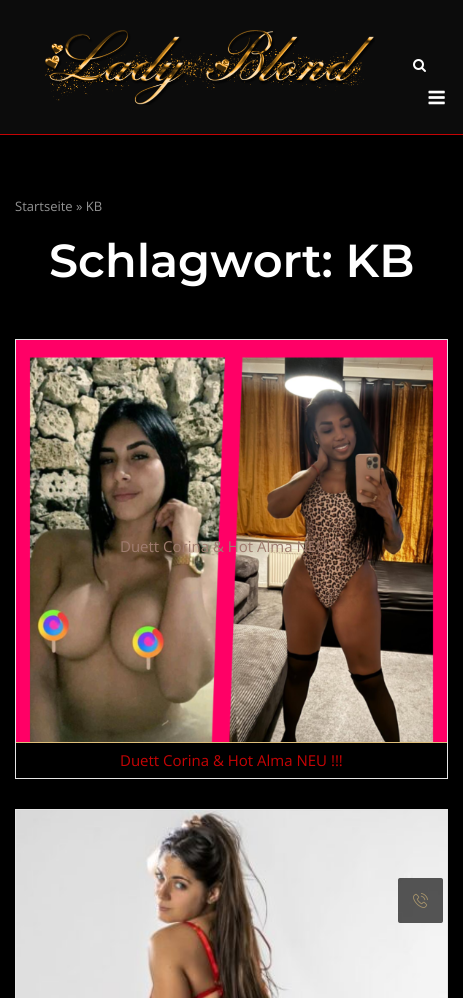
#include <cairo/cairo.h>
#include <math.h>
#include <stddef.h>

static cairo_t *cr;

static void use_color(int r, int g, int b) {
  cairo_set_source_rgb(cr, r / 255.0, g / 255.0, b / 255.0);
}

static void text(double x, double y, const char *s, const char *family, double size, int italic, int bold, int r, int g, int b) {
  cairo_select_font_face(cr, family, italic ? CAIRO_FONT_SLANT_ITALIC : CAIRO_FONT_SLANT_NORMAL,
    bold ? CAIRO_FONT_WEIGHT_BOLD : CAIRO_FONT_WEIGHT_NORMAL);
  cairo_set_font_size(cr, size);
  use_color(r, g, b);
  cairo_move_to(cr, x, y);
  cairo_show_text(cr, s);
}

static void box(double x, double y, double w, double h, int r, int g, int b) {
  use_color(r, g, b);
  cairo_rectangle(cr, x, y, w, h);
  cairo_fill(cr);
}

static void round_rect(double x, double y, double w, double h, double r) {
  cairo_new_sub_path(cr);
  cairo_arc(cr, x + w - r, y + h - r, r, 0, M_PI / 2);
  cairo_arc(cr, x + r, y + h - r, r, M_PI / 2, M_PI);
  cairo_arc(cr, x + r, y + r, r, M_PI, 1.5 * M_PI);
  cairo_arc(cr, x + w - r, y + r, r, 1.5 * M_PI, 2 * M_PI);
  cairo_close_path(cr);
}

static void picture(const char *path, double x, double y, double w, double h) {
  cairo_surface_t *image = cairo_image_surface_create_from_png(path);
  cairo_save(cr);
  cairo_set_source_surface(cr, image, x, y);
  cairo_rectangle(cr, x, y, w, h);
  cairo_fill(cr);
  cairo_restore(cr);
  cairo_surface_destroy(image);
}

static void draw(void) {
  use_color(0, 0, 0);
  cairo_paint(cr);
  box(0, 0, 463, 134, 12, 12, 12);
  box(0, 134, 463, 1, 197, 3, 4);
  picture("img_01.png", 45, 30, 330, 75);
  picture("img_02.png", 413, 59, 13, 13);
  picture("img_03.png", 428, 90, 17, 15);
  picture("img_04.png", 16, 340, 431, 402);
  cairo_rectangle(cr, 15.5, 339.5, 432, 439);
  use_color(230, 230, 230);
  cairo_set_line_width(cr, 1);
  cairo_stroke(cr);
  box(16, 742, 431, 1, 222, 190, 122);
  picture("img_05.png", 16, 810, 431, 188);
  cairo_rectangle(cr, 15.5, 809.5, 432, 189);
  use_color(230, 230, 230);
  cairo_stroke(cr);
  cairo_set_source_rgba(cr, 0, 0, 0, 0.65);
  round_rect(398, 878, 45, 45, 2);
  cairo_fill(cr);
  picture("img_06.png", 413, 893, 15, 15);
  text(15, 211, "Startseite » KB", "Open Sans", 13, 0, 0, 146, 146, 146);
  text(49, 277, "Schlagwort: KB", "Montserrat SemiBold", 46.25, 0, 0, 255, 255, 255);
  text(120, 552, "Duett Corina & Hot Alma NEU !!!", "Open Sans", 15, 0, 0, 159, 124, 111);
  text(120, 766, "Duett Corina & Hot Alma NEU !!!", "Open Sans", 15, 0, 0, 197, 3, 4);
}

int main(void) {
  cairo_surface_t *surface = cairo_image_surface_create(CAIRO_FORMAT_RGB24, 463, 998);
  cr = cairo_create(surface);
  cairo_font_options_t *options = cairo_font_options_create();
  cairo_font_options_set_hint_metrics(options, CAIRO_HINT_METRICS_OFF);
  cairo_font_options_set_hint_style(options, CAIRO_HINT_STYLE_NONE);
  cairo_set_font_options(cr, options);
  cairo_set_miter_limit(cr, 4);
  draw();
  cairo_surface_write_to_png(surface, "out.png");
  cairo_font_options_destroy(options);
  cairo_destroy(cr);
  cairo_surface_destroy(surface);
  return 0;
}
